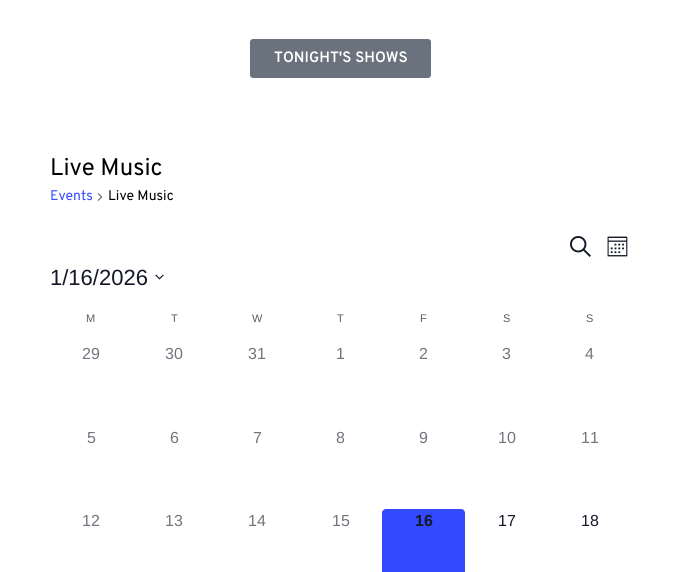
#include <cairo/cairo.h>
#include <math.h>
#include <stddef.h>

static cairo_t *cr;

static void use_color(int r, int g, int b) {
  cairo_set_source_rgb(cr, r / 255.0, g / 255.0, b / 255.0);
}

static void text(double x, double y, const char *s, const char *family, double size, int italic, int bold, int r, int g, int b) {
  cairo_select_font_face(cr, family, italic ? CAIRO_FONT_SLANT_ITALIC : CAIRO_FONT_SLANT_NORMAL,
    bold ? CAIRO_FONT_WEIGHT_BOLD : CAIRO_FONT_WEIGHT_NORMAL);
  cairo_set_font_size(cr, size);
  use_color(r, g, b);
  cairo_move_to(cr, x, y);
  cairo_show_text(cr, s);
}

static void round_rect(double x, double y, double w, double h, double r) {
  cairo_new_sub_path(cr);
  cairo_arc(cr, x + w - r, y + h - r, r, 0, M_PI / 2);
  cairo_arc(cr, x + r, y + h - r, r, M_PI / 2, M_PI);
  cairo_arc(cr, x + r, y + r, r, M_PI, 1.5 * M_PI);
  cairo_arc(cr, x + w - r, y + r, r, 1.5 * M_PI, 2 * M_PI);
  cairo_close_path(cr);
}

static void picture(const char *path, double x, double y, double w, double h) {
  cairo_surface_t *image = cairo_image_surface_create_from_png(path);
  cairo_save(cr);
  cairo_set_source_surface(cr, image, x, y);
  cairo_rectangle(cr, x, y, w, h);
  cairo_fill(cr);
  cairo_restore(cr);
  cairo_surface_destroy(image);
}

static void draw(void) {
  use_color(255, 255, 255);
  cairo_paint(cr);
  use_color(105, 114, 125);
  round_rect(250, 39, 181, 39, 3);
  cairo_fill(cr);
  picture("img_01.png", 97, 193, 6, 8);
  picture("img_02.png", 570, 236, 21, 21);
  picture("img_03.png", 607, 236, 21, 21);
  picture("img_04.png", 155, 274, 9, 6);
  use_color(51, 74, 255);
  round_rect(382, 509, 83, 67, 4);
  cairo_fill(cr);
  text(274, 62, "TONIGHT'S SHOWS", "Overpass SemiBold", 15, 0, 0, 255, 255, 255);
  text(50, 175, "Live Music", "Overpass", 24, 0, 0, 0, 0, 0);
  text(50, 200, "Events", "Overpass", 14, 0, 0, 51, 74, 255);
  text(108, 200, "Live Music", "Overpass", 14, 0, 0, 0, 0, 0);
  text(50, 285, "1/16/2026", "Liberation Sans", 22, 0, 0, 20, 24, 39);
  text(86, 322, "M", "Liberation Sans", 11, 0, 0, 93, 93, 93);
  text(171, 322, "T", "Liberation Sans", 11, 0, 0, 93, 93, 93);
  text(252, 322, "W", "Liberation Sans", 11, 0, 0, 93, 93, 93);
  text(337, 322, "T", "Liberation Sans", 11, 0, 0, 93, 93, 93);
  text(420, 322, "F", "Liberation Sans", 11, 0, 0, 93, 93, 93);
  text(503, 322, "S", "Liberation Sans", 11, 0, 0, 93, 93, 93);
  text(586, 322, "S", "Liberation Sans", 11, 0, 0, 93, 93, 93);
  text(82, 359, "29", "Liberation Sans", 16, 0, 0, 114, 116, 125);
  text(165, 359, "30", "Liberation Sans", 16, 0, 0, 114, 116, 125);
  text(248, 359, "31", "Liberation Sans", 16, 0, 0, 114, 116, 125);
  text(336, 359, "1", "Liberation Sans", 16, 0, 0, 114, 116, 125);
  text(419, 359, "2", "Liberation Sans", 16, 0, 0, 114, 116, 125);
  text(502, 359, "3", "Liberation Sans", 16, 0, 0, 114, 116, 125);
  text(585, 359, "4", "Liberation Sans", 16, 0, 0, 114, 116, 125);
  text(87, 443, "5", "Liberation Sans", 16, 0, 0, 114, 116, 125);
  text(170, 443, "6", "Liberation Sans", 16, 0, 0, 114, 116, 125);
  text(253, 443, "7", "Liberation Sans", 16, 0, 0, 114, 116, 125);
  text(336, 443, "8", "Liberation Sans", 16, 0, 0, 114, 116, 125);
  text(419, 443, "9", "Liberation Sans", 16, 0, 0, 114, 116, 125);
  text(498, 443, "10", "Liberation Sans", 16, 0, 0, 114, 116, 125);
  text(581, 443, "11", "Liberation Sans", 16, 0, 0, 114, 116, 125);
  text(82, 526, "12", "Liberation Sans", 16, 0, 0, 114, 116, 125);
  text(165, 526, "13", "Liberation Sans", 16, 0, 0, 114, 116, 125);
  text(248, 526, "14", "Liberation Sans", 16, 0, 0, 114, 116, 125);
  text(332, 526, "15", "Liberation Sans", 16, 0, 0, 114, 116, 125);
  text(415, 526, "16", "Liberation Sans", 16, 0, 1, 20, 24, 39);
  text(498, 526, "17", "Liberation Sans", 16, 0, 0, 20, 24, 39);
  text(581, 526, "18", "Liberation Sans", 16, 0, 0, 20, 24, 39);
}

int main(void) {
  cairo_surface_t *surface = cairo_image_surface_create(CAIRO_FORMAT_RGB24, 681, 572);
  cr = cairo_create(surface);
  cairo_font_options_t *options = cairo_font_options_create();
  cairo_font_options_set_hint_metrics(options, CAIRO_HINT_METRICS_OFF);
  cairo_font_options_set_hint_style(options, CAIRO_HINT_STYLE_NONE);
  cairo_set_font_options(cr, options);
  cairo_set_miter_limit(cr, 4);
  draw();
  cairo_surface_write_to_png(surface, "out.png");
  cairo_font_options_destroy(options);
  cairo_destroy(cr);
  cairo_surface_destroy(surface);
  return 0;
}
